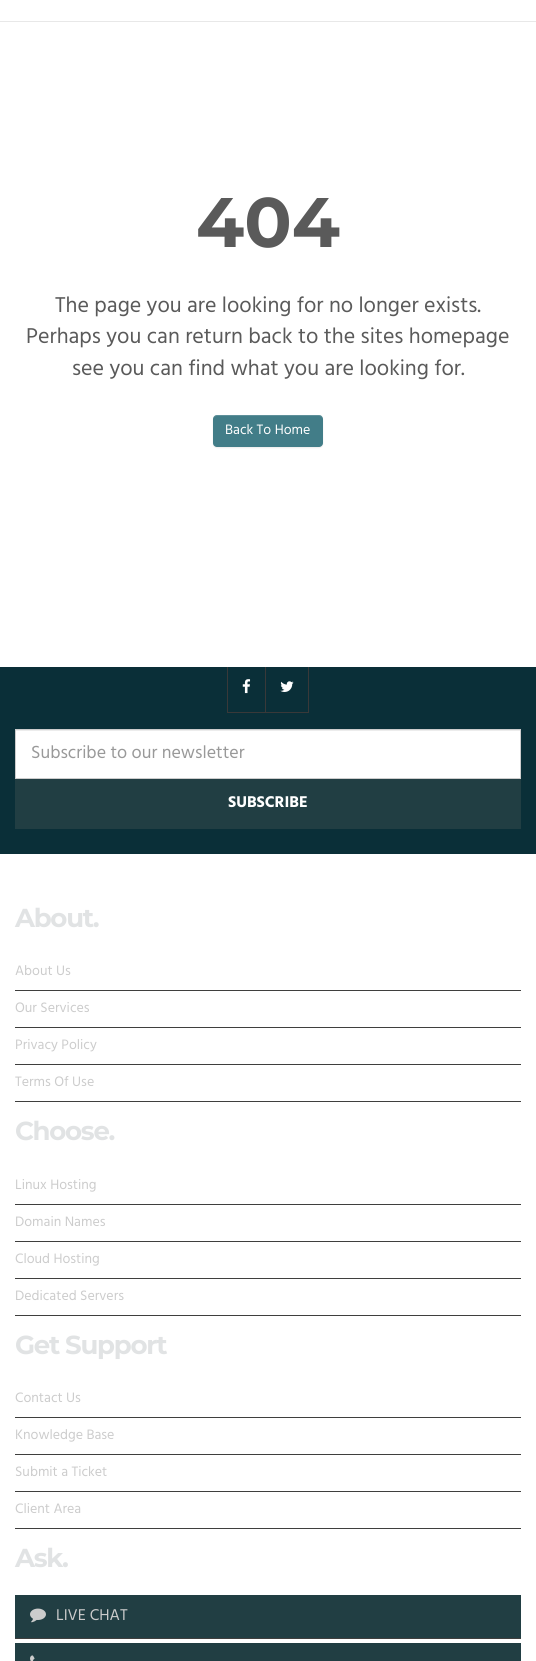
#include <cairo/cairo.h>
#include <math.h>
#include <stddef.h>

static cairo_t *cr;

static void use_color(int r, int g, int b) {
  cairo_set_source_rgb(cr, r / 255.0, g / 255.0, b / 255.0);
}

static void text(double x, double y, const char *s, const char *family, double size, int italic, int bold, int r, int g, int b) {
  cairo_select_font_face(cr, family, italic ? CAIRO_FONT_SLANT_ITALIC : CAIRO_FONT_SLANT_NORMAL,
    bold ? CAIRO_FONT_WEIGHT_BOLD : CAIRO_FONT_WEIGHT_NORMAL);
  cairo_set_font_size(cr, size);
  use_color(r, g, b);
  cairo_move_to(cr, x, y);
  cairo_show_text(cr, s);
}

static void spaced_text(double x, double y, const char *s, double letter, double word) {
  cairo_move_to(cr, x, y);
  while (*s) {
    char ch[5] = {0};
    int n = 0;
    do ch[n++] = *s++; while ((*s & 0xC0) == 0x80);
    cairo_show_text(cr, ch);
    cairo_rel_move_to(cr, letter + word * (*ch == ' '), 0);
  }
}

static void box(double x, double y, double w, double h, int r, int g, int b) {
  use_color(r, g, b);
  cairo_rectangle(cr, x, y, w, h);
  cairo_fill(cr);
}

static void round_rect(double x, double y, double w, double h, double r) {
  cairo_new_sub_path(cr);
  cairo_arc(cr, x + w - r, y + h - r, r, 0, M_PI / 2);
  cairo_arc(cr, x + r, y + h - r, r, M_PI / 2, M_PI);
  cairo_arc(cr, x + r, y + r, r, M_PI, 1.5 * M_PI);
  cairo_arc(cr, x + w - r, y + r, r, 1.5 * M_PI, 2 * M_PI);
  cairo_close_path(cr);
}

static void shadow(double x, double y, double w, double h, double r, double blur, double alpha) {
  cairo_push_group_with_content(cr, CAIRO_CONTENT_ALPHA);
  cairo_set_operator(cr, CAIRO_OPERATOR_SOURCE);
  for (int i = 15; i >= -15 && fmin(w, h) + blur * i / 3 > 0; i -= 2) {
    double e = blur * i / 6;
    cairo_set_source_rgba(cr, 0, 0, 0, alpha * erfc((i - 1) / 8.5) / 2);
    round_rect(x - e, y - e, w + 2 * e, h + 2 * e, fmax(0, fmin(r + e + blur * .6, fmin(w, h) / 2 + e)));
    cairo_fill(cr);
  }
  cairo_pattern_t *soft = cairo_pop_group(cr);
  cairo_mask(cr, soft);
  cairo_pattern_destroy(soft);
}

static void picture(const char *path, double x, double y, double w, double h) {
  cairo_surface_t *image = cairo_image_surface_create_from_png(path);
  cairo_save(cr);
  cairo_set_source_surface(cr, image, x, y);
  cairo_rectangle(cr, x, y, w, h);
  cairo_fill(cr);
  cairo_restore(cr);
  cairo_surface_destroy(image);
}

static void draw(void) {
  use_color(255, 255, 255);
  cairo_paint(cr);
  box(0, 21, 536, 1, 232, 232, 232);
  use_color(0, 0, 0);
  shadow(213, 416, 110, 32, 4, 0.5, 0.07);
  use_color(66, 125, 136);
  round_rect(213, 415, 110, 32, 4);
  cairo_fill(cr);
  cairo_set_source_rgba(cr, 1, 1, 1, 0.15);
  cairo_new_path(cr);
  cairo_move_to(cr, 217, 416);
  cairo_line_to(cr, 319, 416);
  cairo_curve_to(cr, 321, 416, 323, 418, 323, 420);
  cairo_curve_to(cr, 323, 411, 306, 415, 302, 415);
  cairo_line_to(cr, 234, 415);
  cairo_curve_to(cr, 230, 415, 213, 411, 213, 420);
  cairo_curve_to(cr, 213, 418, 215, 416, 217, 416);
  cairo_close_path(cr);
  cairo_fill(cr);
  box(0, 667, 536, 187, 10, 47, 56);
  box(227, 712, 38, 1, 57, 57, 57);
  box(227, 667, 1, 46, 57, 57, 57);
  picture("img_01.png", 242, 679, 9, 15);
  box(308, 667, 1, 46, 57, 57, 57);
  box(265, 712, 44, 1, 57, 57, 57);
  box(265, 667, 1, 46, 57, 57, 57);
  picture("img_02.png", 280, 681, 14, 11);
  box(16, 731, 504, 47, 255, 255, 255);
  box(16, 730, 504, 1, 236, 236, 236);
  cairo_rectangle(cr, 15.5, 729.5, 505, 49);
  use_color(204, 204, 204);
  cairo_set_line_width(cr, 1);
  cairo_stroke(cr);
  box(15, 779, 506, 50, 33, 62, 67);
  box(15, 990, 506, 1, 63, 63, 62);
  box(15, 1027, 506, 1, 63, 63, 62);
  box(15, 1064, 506, 1, 63, 63, 62);
  box(15, 1101, 506, 1, 63, 63, 62);
  box(15, 1204, 506, 1, 63, 63, 62);
  box(15, 1241, 506, 1, 63, 63, 62);
  box(15, 1278, 506, 1, 63, 63, 62);
  box(15, 1315, 506, 1, 63, 63, 62);
  box(15, 1417, 506, 1, 63, 63, 62);
  box(15, 1454, 506, 1, 63, 63, 62);
  box(15, 1491, 506, 1, 63, 63, 62);
  box(15, 1528, 506, 1, 63, 63, 62);
  box(15, 1595, 506, 43, 33, 62, 67);
  box(15, 1638, 506, 1, 63, 63, 62);
  picture("img_03.png", 30, 1608, 16, 15);
  box(15, 1643, 506, 18, 33, 62, 67);
  picture("img_04.png", 30, 1655, 5, 6);
  text(196, 247, "404", "Montserrat", 70, 0, 1, 90, 90, 90);
  text(55, 312, "The page you are looking for no longer exists.", "Hind", 22, 0, 0, 90, 90, 90);
  text(26, 343, "Perhaps you can return back to the sites homepage", "Hind", 22, 0, 0, 90, 90, 90);
  text(72, 375, "see you can find what you are looking for.", "Hind", 22, 0, 0, 90, 90, 90);
  text(225, 434, "Back To Home", "Hind", 14, 0, 0, 255, 255, 255);
  text(31, 758, "Subscribe to our newsletter", "Hind", 18, 0, 0, 153, 153, 153);
  text(228, 807, "SUBSCRIBE", "Hind", 16, 0, 1, 255, 255, 255);
  cairo_select_font_face(cr, "Montserrat", CAIRO_FONT_SLANT_NORMAL, CAIRO_FONT_WEIGHT_BOLD);
  cairo_set_font_size(cr, 26);
  use_color(225, 227, 228);
  spaced_text(15, 927, "About.", -1.25, 0);
  text(15, 975, "About Us", "Hind", 14, 0, 0, 204, 204, 204);
  text(15, 1012, "Our Services", "Hind", 14, 0, 0, 204, 204, 204);
  text(15, 1049, "Privacy Policy", "Hind", 14, 0, 0, 204, 204, 204);
  text(15, 1086, "Terms Of Use", "Hind", 14, 0, 0, 204, 204, 204);
  cairo_select_font_face(cr, "Montserrat", CAIRO_FONT_SLANT_NORMAL, CAIRO_FONT_WEIGHT_BOLD);
  cairo_set_font_size(cr, 26);
  use_color(225, 227, 228);
  spaced_text(15, 1140, "Choose.", -1.25, 0);
  text(15, 1189, "Linux Hosting", "Hind", 14, 0, 0, 204, 204, 204);
  text(15, 1226, "Domain Names", "Hind", 14, 0, 0, 204, 204, 204);
  text(15, 1263, "Cloud Hosting", "Hind", 14, 0, 0, 204, 204, 204);
  text(15, 1300, "Dedicated Servers", "Hind", 14, 0, 0, 204, 204, 204);
  cairo_select_font_face(cr, "Montserrat", CAIRO_FONT_SLANT_NORMAL, CAIRO_FONT_WEIGHT_BOLD);
  cairo_set_font_size(cr, 26);
  use_color(225, 227, 228);
  spaced_text(15, 1354, "Get Support", -1.25, 0);
  text(15, 1402, "Contact Us", "Hind", 14, 0, 0, 204, 204, 204);
  text(15, 1439, "Knowledge Base", "Hind", 14, 0, 0, 204, 204, 204);
  text(15, 1476, "Submit a Ticket", "Hind", 14, 0, 0, 204, 204, 204);
  text(15, 1513, "Client Area", "Hind", 14, 0, 0, 204, 204, 204);
  cairo_select_font_face(cr, "Montserrat", CAIRO_FONT_SLANT_NORMAL, CAIRO_FONT_WEIGHT_BOLD);
  cairo_set_font_size(cr, 26);
  use_color(225, 227, 228);
  spaced_text(15, 1567, "Ask.", -1.25, 0);
  text(56, 1620, "LIVE CHAT", "Hind", 16, 0, 0, 204, 204, 204);
}

int main(void) {
  cairo_surface_t *surface = cairo_image_surface_create(CAIRO_FORMAT_RGB24, 536, 1661);
  cr = cairo_create(surface);
  cairo_font_options_t *options = cairo_font_options_create();
  cairo_font_options_set_hint_metrics(options, CAIRO_HINT_METRICS_OFF);
  cairo_font_options_set_hint_style(options, CAIRO_HINT_STYLE_NONE);
  cairo_set_font_options(cr, options);
  cairo_set_miter_limit(cr, 4);
  draw();
  cairo_surface_write_to_png(surface, "out.png");
  cairo_font_options_destroy(options);
  cairo_destroy(cr);
  cairo_surface_destroy(surface);
  return 0;
}
